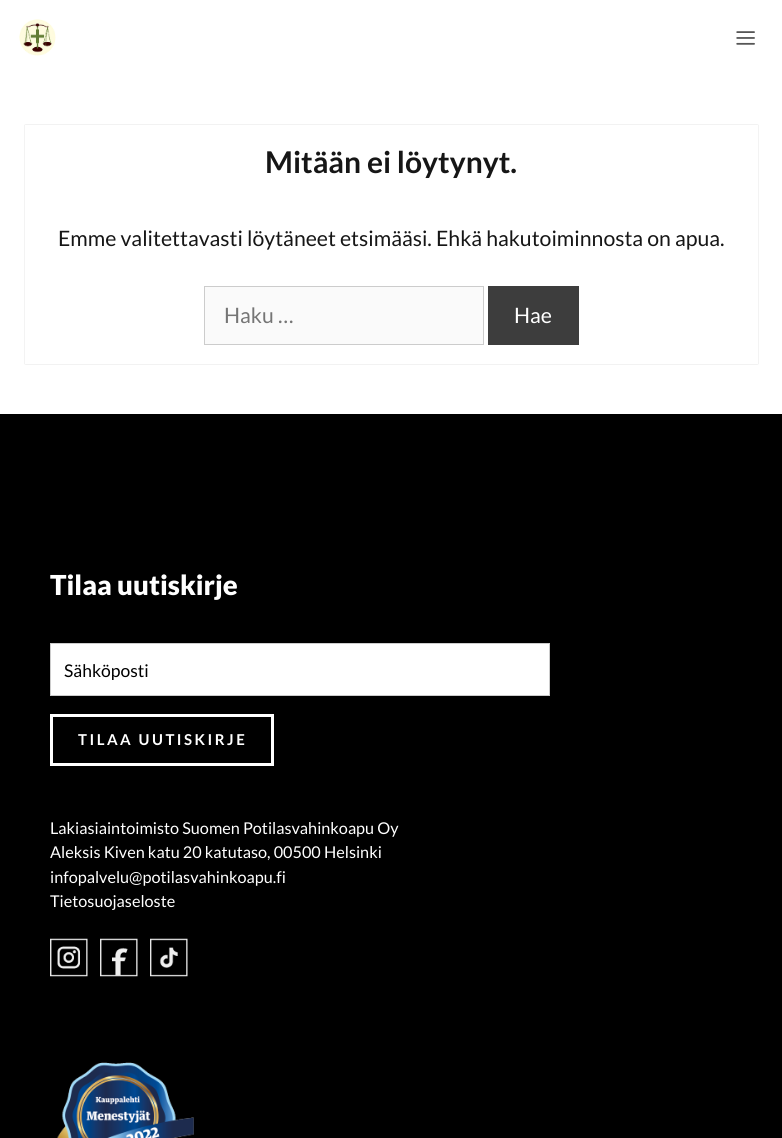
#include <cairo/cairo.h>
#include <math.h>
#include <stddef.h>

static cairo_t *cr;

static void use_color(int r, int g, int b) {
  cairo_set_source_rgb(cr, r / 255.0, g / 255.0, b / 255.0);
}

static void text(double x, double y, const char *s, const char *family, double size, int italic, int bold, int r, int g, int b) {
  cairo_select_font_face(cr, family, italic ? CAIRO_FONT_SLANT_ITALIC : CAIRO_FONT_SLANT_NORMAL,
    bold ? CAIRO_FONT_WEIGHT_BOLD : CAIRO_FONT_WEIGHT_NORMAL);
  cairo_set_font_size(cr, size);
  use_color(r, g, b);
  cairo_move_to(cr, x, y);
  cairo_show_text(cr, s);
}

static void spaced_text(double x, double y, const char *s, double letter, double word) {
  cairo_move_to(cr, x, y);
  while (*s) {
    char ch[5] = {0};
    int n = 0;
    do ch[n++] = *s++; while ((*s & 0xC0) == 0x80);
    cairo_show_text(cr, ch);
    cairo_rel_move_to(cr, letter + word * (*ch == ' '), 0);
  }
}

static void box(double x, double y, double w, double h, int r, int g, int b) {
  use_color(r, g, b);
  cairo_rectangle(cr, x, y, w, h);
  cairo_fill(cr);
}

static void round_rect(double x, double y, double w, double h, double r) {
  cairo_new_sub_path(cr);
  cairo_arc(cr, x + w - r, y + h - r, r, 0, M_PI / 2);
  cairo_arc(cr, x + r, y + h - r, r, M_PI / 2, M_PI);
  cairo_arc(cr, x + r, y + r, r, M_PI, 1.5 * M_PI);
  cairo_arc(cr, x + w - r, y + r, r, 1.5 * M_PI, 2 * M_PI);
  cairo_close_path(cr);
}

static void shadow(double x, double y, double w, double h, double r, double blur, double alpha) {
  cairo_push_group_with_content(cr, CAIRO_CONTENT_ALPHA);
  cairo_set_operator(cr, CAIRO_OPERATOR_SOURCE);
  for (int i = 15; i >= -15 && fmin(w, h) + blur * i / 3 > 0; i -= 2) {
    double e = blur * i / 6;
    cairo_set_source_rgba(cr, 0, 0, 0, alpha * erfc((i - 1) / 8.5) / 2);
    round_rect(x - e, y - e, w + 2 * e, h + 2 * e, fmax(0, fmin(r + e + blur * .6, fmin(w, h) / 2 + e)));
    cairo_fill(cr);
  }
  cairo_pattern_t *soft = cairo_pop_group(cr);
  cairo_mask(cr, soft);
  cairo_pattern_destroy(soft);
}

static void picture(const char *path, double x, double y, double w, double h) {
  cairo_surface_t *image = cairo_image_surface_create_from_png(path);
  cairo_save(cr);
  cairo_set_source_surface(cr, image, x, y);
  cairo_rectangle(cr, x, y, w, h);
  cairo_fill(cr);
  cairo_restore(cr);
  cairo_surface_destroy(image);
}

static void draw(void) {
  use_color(255, 255, 255);
  cairo_paint(cr);
  picture("img_01.png", 19, 19, 37, 37);
  picture("img_02.png", 736, 31, 19, 14);
  use_color(0, 0, 0);
  shadow(25, 125, 733, 239, 0, 0.5, 0.2);
  box(25, 125, 733, 239, 255, 255, 255);
  use_color(250, 250, 250);
  cairo_rectangle(cr, 204.5, 286.5, 279, 58);
  cairo_fill_preserve(cr);
  use_color(204, 204, 204);
  cairo_set_line_width(cr, 1);
  cairo_stroke(cr);
  box(488, 286, 91, 59, 61, 61, 61);
  box(0, 414, 782, 724, 0, 0, 0);
  use_color(255, 255, 255);
  cairo_rectangle(cr, 50.5, 643.5, 499, 52);
  cairo_fill_preserve(cr);
  use_color(204, 204, 204);
  cairo_stroke(cr);
  cairo_rectangle(cr, 51.5, 715.5, 221, 49);
  use_color(255, 255, 255);
  cairo_set_line_width(cr, 3);
  cairo_stroke(cr);
  picture("img_03.png", 50, 938, 38, 39);
  picture("img_04.png", 100, 938, 38, 39);
  picture("img_05.png", 150, 938, 38, 39);
  picture("img_06.png", 57, 1062, 137, 76);
  text(265, 173, "Mitään ei löytynyt.", "Lato", 30, 0, 1, 22, 22, 22);
  text(58, 246, "Emme valitettavasti löytäneet etsimääsi. Ehkä hakutoiminnosta on apua.", "Lato", 21.25, 0, 0, 22, 22, 22);
  text(224, 323, "Haku …", "Lato", 21.25, 0, 0, 117, 117, 117);
  text(514, 323, "Hae", "Lato", 21.25, 0, 0, 255, 255, 255);
  text(50, 595, "Tilaa uutiskirje", "Lato Black", 27.5, 0, 0, 255, 255, 255);
  text(64, 677, "Sähköposti", "Lato", 17.5, 0, 0, 0, 0, 0);
  cairo_select_font_face(cr, "Lato", CAIRO_FONT_SLANT_NORMAL, CAIRO_FONT_WEIGHT_BOLD);
  cairo_set_font_size(cr, 15);
  use_color(255, 255, 255);
  spaced_text(78, 745, "TILAA UUTISKIRJE", 2.5, 0);
  text(50, 834, "Lakiasiaintoimisto Suomen Potilasvahinkoapu Oy", "Lato", 16.25, 0, 0, 255, 255, 255);
  text(50, 858, "Aleksis Kiven katu 20 katutaso, 00500 Helsinki", "Lato", 16.25, 0, 0, 255, 255, 255);
  text(50, 883, "infopalvelu@potilasvahinkoapu.fi", "Lato", 16.25, 0, 0, 255, 255, 255);
  text(50, 907, "Tietosuojaseloste", "Lato", 16.25, 0, 0, 255, 255, 255);
}

int main(void) {
  cairo_surface_t *surface = cairo_image_surface_create(CAIRO_FORMAT_RGB24, 782, 1138);
  cr = cairo_create(surface);
  cairo_font_options_t *options = cairo_font_options_create();
  cairo_font_options_set_hint_metrics(options, CAIRO_HINT_METRICS_OFF);
  cairo_font_options_set_hint_style(options, CAIRO_HINT_STYLE_NONE);
  cairo_set_font_options(cr, options);
  cairo_set_miter_limit(cr, 4);
  draw();
  cairo_surface_write_to_png(surface, "out.png");
  cairo_font_options_destroy(options);
  cairo_destroy(cr);
  cairo_surface_destroy(surface);
  return 0;
}
